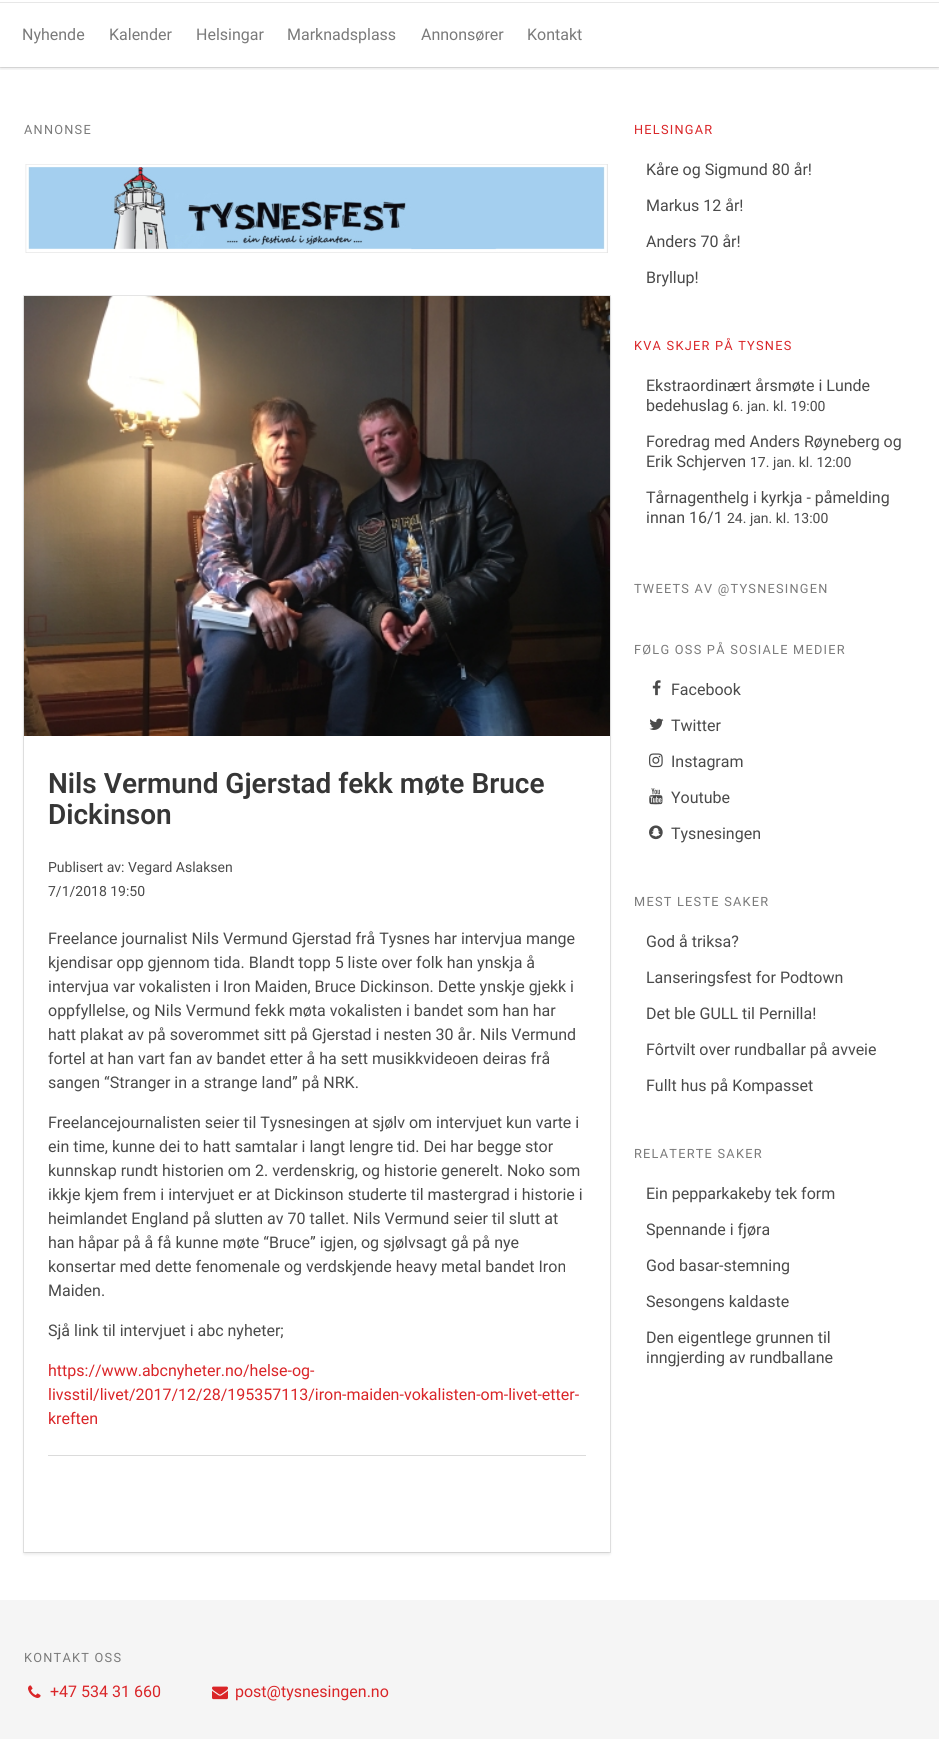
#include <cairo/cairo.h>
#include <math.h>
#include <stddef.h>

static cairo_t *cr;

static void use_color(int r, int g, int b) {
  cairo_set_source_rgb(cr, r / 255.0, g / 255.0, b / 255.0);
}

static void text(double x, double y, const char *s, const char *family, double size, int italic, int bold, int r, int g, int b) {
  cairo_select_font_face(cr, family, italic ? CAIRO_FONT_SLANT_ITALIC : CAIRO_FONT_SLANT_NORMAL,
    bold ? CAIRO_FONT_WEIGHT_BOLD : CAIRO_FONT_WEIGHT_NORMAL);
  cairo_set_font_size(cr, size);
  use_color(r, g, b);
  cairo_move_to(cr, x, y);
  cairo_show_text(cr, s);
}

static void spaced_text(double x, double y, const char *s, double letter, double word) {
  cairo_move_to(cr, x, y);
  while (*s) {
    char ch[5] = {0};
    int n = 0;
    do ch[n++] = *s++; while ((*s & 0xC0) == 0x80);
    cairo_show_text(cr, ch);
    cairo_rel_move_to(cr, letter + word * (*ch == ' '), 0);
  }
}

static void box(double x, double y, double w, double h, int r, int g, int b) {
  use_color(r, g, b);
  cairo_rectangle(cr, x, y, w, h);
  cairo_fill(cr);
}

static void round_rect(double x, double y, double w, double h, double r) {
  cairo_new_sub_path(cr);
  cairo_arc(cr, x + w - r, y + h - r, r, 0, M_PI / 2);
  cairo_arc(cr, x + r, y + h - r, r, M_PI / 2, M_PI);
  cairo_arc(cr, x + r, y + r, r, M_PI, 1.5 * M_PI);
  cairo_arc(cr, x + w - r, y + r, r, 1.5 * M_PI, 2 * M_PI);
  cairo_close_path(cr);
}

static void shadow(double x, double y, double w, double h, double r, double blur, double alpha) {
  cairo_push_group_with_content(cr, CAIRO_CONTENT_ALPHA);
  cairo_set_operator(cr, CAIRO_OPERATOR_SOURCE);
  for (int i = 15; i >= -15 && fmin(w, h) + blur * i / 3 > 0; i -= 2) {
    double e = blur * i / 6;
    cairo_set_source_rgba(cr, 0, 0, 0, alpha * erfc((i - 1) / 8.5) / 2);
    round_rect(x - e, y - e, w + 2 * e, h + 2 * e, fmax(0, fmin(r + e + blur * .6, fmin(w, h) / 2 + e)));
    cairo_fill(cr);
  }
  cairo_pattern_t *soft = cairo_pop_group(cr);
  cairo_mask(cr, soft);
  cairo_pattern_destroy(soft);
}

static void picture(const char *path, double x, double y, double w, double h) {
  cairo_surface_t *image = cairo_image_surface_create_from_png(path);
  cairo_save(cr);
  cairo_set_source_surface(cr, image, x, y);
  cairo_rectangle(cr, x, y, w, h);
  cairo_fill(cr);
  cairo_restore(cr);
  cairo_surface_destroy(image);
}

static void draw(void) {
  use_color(255, 255, 255);
  cairo_paint(cr);
  cairo_rectangle(cr, -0.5, 2.5, 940, 65);
  use_color(231, 231, 231);
  cairo_set_line_width(cr, 1);
  cairo_stroke(cr);
  cairo_save(cr);
  cairo_rectangle(cr, 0, 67, 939, 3);
  cairo_clip(cr);
  use_color(10, 10, 10);
  shadow(0, 5, 939, 64, 0, 1.5, 0.1);
  cairo_restore(cr);
  picture("img_01.png", 25, 164, 583, 89);
  cairo_rectangle(cr, 23.5, 295.5, 587, 1257);
  cairo_stroke(cr);
  cairo_save(cr);
  cairo_set_fill_rule(cr, CAIRO_FILL_RULE_EVEN_ODD);
  cairo_new_path(cr);
  cairo_move_to(cr, 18, 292);
  cairo_line_to(cr, 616, 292);
  cairo_line_to(cr, 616, 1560);
  cairo_line_to(cr, 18, 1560);
  cairo_close_path(cr);
  cairo_move_to(cr, 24, 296);
  cairo_line_to(cr, 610, 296);
  cairo_line_to(cr, 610, 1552);
  cairo_line_to(cr, 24, 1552);
  cairo_close_path(cr);
  cairo_clip(cr);
  use_color(10, 10, 10);
  shadow(24, 298, 586, 1256, 0, 1.5, 0.1);
  cairo_restore(cr);
  picture("img_02.png", 24, 296, 586, 440);
  box(48, 1455, 538, 1, 219, 219, 219);
  picture("img_03.png", 652, 680, 9, 16);
  picture("img_04.png", 649, 718, 15, 12);
  picture("img_05.png", 649, 753, 14, 15);
  picture("img_06.png", 649, 788, 14, 17);
  picture("img_07.png", 649, 825, 14, 15);
  box(0, 1600, 939, 139, 245, 245, 245);
  picture("img_08.png", 28, 1685, 13, 13);
  picture("img_09.png", 212, 1686, 16, 14);
  text(22, 40, "Nyhende", "Roboto", 16, 0, 0, 122, 122, 122);
  text(109, 40, "Kalender", "Roboto", 16, 0, 0, 122, 122, 122);
  text(196, 40, "Helsingar", "Roboto", 16, 0, 0, 122, 122, 122);
  text(287, 40, "Marknadsplass", "Roboto", 16, 0, 0, 122, 122, 122);
  text(421, 40, "Annonsører", "Roboto", 16, 0, 0, 122, 122, 122);
  text(527, 40, "Kontakt", "Roboto", 16, 0, 0, 122, 122, 122);
  cairo_set_font_size(cr, 12.75);
  spaced_text(24, 134, "ANNONSE", 1.25, 0);
  text(48, 793, "Nils Vermund Gjerstad fekk møte Bruce", "Roboto SemiBold", 28, 0, 0, 54, 54, 54);
  text(48, 824, "Dickinson", "Roboto SemiBold", 28, 0, 0, 54, 54, 54);
  text(48, 872, "Publisert av: Vegard Aslaksen", "Roboto", 14, 0, 0, 74, 74, 74);
  text(48, 896, "7/1/2018 19:50", "Roboto", 14, 0, 0, 74, 74, 74);
  text(48, 944, "Freelance journalist Nils Vermund Gjerstad frå Tysnes har intervjua mange", "Roboto", 16, 0, 0, 74, 74, 74);
  text(48, 968, "kjendisar opp gjennom tida. Blandt topp 5 liste over folk han ynskja å", "Roboto", 16, 0, 0, 74, 74, 74);
  text(48, 992, "intervjua var vokalisten i Iron Maiden, Bruce Dickinson. Dette ynskje gjekk i", "Roboto", 16, 0, 0, 74, 74, 74);
  text(48, 1016, "oppfyllelse, og Nils Vermund fekk møta vokalisten i bandet som han har", "Roboto", 16, 0, 0, 74, 74, 74);
  text(48, 1040, "hatt plakat av på soverommet sitt på Gjerstad i nesten 30 år. Nils Vermund", "Roboto", 16, 0, 0, 74, 74, 74);
  text(48, 1064, "fortel at han vart fan av bandet etter å ha sett musikkvideoen deiras frå", "Roboto", 16, 0, 0, 74, 74, 74);
  text(48, 1088, "sangen “Stranger in a strange land” på NRK.", "Roboto", 16, 0, 0, 74, 74, 74);
  text(48, 1128, "Freelancejournalisten seier til Tysnesingen at sjølv om intervjuet kun varte i", "Roboto", 16, 0, 0, 74, 74, 74);
  text(48, 1152, "ein time, kunne dei to hatt samtalar i langt lengre tid. Dei har begge stor", "Roboto", 16, 0, 0, 74, 74, 74);
  text(48, 1176, "kunnskap rundt historien om 2. verdenskrig, og historie generelt. Noko som", "Roboto", 16, 0, 0, 74, 74, 74);
  text(48, 1200, "ikkje kjem frem i intervjuet er at Dickinson studerte til mastergrad i historie i", "Roboto", 16, 0, 0, 74, 74, 74);
  text(48, 1224, "heimlandet England på slutten av 70 tallet. Nils Vermund seier til slutt at", "Roboto", 16, 0, 0, 74, 74, 74);
  text(48, 1248, "han håpar på å få kunne møte “Bruce” igjen, og sjølvsagt gå på nye", "Roboto", 16, 0, 0, 74, 74, 74);
  text(48, 1272, "konsertar med dette fenomenale og verdskjende heavy metal bandet Iron", "Roboto", 16, 0, 0, 74, 74, 74);
  text(48, 1296, "Maiden.", "Roboto", 16, 0, 0, 74, 74, 74);
  text(48, 1336, "Sjå link til intervjuet i abc nyheter;", "Roboto", 16, 0, 0, 74, 74, 74);
  text(48, 1376, "https://www.abcnyheter.no/helse-og-", "Roboto", 16, 0, 0, 218, 37, 40);
  text(48, 1400, "livsstil/livet/2017/12/28/195357113/iron-maiden-vokalisten-om-livet-etter-", "Roboto", 16, 0, 0, 218, 37, 40);
  text(48, 1424, "kreften", "Roboto", 16, 0, 0, 218, 37, 40);
  cairo_set_font_size(cr, 12.75);
  spaced_text(634, 134, "HELSINGAR", 1.25, 0);
  text(646, 175, "Kåre og Sigmund 80 år!", "Roboto", 16, 0, 0, 74, 74, 74);
  text(646, 211, "Markus 12 år!", "Roboto", 16, 0, 0, 74, 74, 74);
  text(646, 247, "Anders 70 år!", "Roboto", 16, 0, 0, 74, 74, 74);
  text(646, 283, "Bryllup!", "Roboto", 16, 0, 0, 74, 74, 74);
  cairo_set_font_size(cr, 12.75);
  use_color(218, 37, 40);
  spaced_text(634, 350, "KVA SKJER PÅ TYSNES", 1.25, 0);
  text(646, 391, "Ekstraordinært årsmøte i Lunde", "Roboto", 16, 0, 0, 74, 74, 74);
  text(646, 411, "bedehuslag", "Roboto", 16, 0, 0, 74, 74, 74);
  text(732, 411, "6. jan. kl. 19:00", "Roboto", 14, 0, 0, 74, 74, 74);
  text(646, 447, "Foredrag med Anders Røyneberg og", "Roboto", 16, 0, 0, 74, 74, 74);
  text(646, 467, "Erik Schjerven", "Roboto", 16, 0, 0, 74, 74, 74);
  text(750, 467, "17. jan. kl. 12:00", "Roboto", 14, 0, 0, 74, 74, 74);
  text(646, 503, "Tårnagenthelg i kyrkja - påmelding", "Roboto", 16, 0, 0, 74, 74, 74);
  text(646, 523, "innan 16/1", "Roboto", 16, 0, 0, 74, 74, 74);
  text(727, 523, "24. jan. kl. 13:00", "Roboto", 14, 0, 0, 74, 74, 74);
  cairo_set_font_size(cr, 12.75);
  use_color(122, 122, 122);
  spaced_text(634, 593, "TWEETS AV @TYSNESINGEN", 1.25, 0);
  spaced_text(634, 654, "FØLG OSS PÅ SOSIALE MEDIER", 1.25, 0);
  text(671, 695, "Facebook", "Roboto", 16, 0, 0, 74, 74, 74);
  text(671, 731, "Twitter", "Roboto", 16, 0, 0, 74, 74, 74);
  text(671, 767, "Instagram", "Roboto", 16, 0, 0, 74, 74, 74);
  text(671, 803, "Youtube", "Roboto", 16, 0, 0, 74, 74, 74);
  text(671, 839, "Tysnesingen", "Roboto", 16, 0, 0, 74, 74, 74);
  cairo_set_font_size(cr, 12.75);
  use_color(122, 122, 122);
  spaced_text(634, 906, "MEST LESTE SAKER", 1.25, 0);
  text(646, 947, "God å triksa?", "Roboto", 16, 0, 0, 74, 74, 74);
  text(646, 983, "Lanseringsfest for Podtown", "Roboto", 16, 0, 0, 74, 74, 74);
  text(646, 1019, "Det ble GULL til Pernilla!", "Roboto", 16, 0, 0, 74, 74, 74);
  text(646, 1055, "Fôrtvilt over rundballar på avveie", "Roboto", 16, 0, 0, 74, 74, 74);
  text(646, 1091, "Fullt hus på Kompasset", "Roboto", 16, 0, 0, 74, 74, 74);
  cairo_set_font_size(cr, 12.75);
  use_color(122, 122, 122);
  spaced_text(634, 1158, "RELATERTE SAKER", 1.25, 0);
  text(646, 1199, "Ein pepparkakeby tek form", "Roboto", 16, 0, 0, 74, 74, 74);
  text(646, 1235, "Spennande i fjøra", "Roboto", 16, 0, 0, 74, 74, 74);
  text(646, 1271, "God basar-stemning", "Roboto", 16, 0, 0, 74, 74, 74);
  text(646, 1307, "Sesongens kaldaste", "Roboto", 16, 0, 0, 74, 74, 74);
  text(646, 1343, "Den eigentlege grunnen til", "Roboto", 16, 0, 0, 74, 74, 74);
  text(646, 1363, "inngjerding av rundballane", "Roboto", 16, 0, 0, 74, 74, 74);
  cairo_set_font_size(cr, 12.75);
  use_color(122, 122, 122);
  spaced_text(24, 1662, "KONTAKT OSS", 1.25, 0);
  text(50, 1697, "+47 534 31 660", "Roboto", 16, 0, 0, 218, 37, 40);
  text(235, 1697, "post@tysnesingen.no", "Roboto", 16, 0, 0, 218, 37, 40);
}

int main(void) {
  cairo_surface_t *surface = cairo_image_surface_create(CAIRO_FORMAT_RGB24, 939, 1739);
  cr = cairo_create(surface);
  cairo_font_options_t *options = cairo_font_options_create();
  cairo_font_options_set_hint_metrics(options, CAIRO_HINT_METRICS_OFF);
  cairo_font_options_set_hint_style(options, CAIRO_HINT_STYLE_NONE);
  cairo_set_font_options(cr, options);
  cairo_set_miter_limit(cr, 4);
  draw();
  cairo_surface_write_to_png(surface, "out.png");
  cairo_font_options_destroy(options);
  cairo_destroy(cr);
  cairo_surface_destroy(surface);
  return 0;
}
